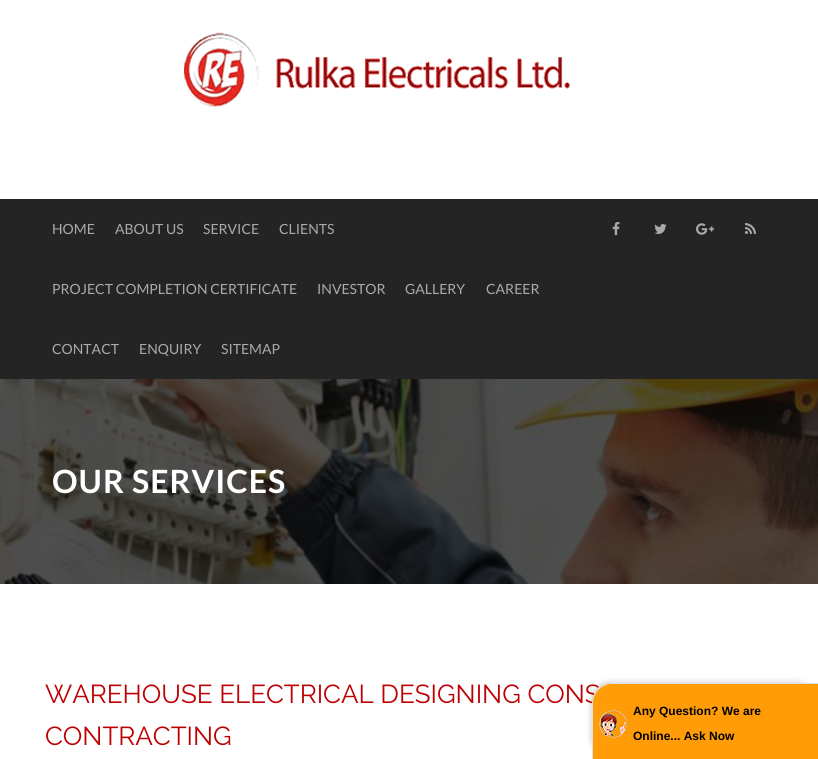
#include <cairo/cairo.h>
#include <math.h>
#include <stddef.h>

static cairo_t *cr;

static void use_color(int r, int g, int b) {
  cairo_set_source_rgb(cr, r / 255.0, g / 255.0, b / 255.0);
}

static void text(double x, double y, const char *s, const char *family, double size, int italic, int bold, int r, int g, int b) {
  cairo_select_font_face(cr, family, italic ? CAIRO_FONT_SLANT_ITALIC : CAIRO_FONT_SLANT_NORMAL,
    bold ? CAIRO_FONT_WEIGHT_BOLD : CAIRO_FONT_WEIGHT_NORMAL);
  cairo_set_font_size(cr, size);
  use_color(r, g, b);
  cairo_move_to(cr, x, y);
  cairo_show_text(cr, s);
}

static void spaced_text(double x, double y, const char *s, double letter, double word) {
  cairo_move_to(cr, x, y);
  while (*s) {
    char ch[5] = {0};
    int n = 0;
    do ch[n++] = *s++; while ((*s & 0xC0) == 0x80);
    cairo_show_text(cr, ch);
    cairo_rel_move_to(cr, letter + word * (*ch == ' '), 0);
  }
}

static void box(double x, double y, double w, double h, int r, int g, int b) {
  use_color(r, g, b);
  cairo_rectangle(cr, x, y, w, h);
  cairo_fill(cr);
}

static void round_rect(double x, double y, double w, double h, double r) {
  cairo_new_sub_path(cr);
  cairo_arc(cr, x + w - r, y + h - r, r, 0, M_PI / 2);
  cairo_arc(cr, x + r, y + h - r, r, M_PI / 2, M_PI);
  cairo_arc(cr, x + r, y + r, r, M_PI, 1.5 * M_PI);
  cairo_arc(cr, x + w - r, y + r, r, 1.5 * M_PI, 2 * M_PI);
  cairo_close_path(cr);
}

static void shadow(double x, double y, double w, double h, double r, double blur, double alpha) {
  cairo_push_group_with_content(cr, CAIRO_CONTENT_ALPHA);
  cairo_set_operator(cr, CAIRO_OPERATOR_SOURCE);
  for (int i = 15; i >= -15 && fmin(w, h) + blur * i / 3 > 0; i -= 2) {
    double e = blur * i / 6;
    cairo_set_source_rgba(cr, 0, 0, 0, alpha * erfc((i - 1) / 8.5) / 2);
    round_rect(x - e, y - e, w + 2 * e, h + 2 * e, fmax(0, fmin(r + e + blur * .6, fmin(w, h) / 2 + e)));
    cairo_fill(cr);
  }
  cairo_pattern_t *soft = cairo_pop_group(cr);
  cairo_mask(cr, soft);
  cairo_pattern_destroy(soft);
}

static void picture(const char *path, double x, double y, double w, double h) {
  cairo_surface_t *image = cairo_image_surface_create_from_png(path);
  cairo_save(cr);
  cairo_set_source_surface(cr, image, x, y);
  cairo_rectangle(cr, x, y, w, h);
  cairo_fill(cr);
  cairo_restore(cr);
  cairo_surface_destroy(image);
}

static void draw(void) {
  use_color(255, 255, 255);
  cairo_paint(cr);
  picture("img_01.png", 184, 32, 386, 75);
  box(0, 199, 818, 180, 36, 36, 36);
  picture("img_02.png", 612, 222, 8, 13);
  picture("img_03.png", 654, 224, 13, 10);
  picture("img_04.png", 696, 223, 18, 12);
  picture("img_05.png", 745, 223, 11, 11);
  picture("img_06.png", 0, 379, 818, 205);
  use_color(50, 50, 50);
  shadow(590, 681, 226, 76, 20, 2.5, 0.17);
  text(52, 234, "HOME", "Lato", 14, 0, 0, 170, 170, 170);
  text(115, 234, "ABOUT US", "Lato", 14, 0, 0, 170, 170, 170);
  text(203, 234, "SERVICE", "Lato", 14, 0, 0, 170, 170, 170);
  text(279, 234, "CLIENTS", "Lato", 14, 0, 0, 170, 170, 170);
  text(52, 294, "PROJECT COMPLETION CERTIFICATE", "Lato", 14, 0, 0, 170, 170, 170);
  text(317, 294, "INVESTOR", "Lato", 14, 0, 0, 170, 170, 170);
  text(405, 294, "GALLERY", "Lato", 14, 0, 0, 170, 170, 170);
  text(486, 294, "CAREER", "Lato", 14, 0, 0, 170, 170, 170);
  text(52, 354, "CONTACT", "Lato", 14, 0, 0, 170, 170, 170);
  text(139, 354, "ENQUIRY", "Lato", 14, 0, 0, 170, 170, 170);
  text(221, 354, "SITEMAP", "Lato", 14, 0, 0, 170, 170, 170);
  cairo_select_font_face(cr, "Lato", CAIRO_FONT_SLANT_NORMAL, CAIRO_FONT_WEIGHT_BOLD);
  cairo_set_font_size(cr, 32);
  use_color(255, 255, 255);
  spaced_text(52, 493, "OUR SERVICES", 1, 0);
  text(45, 703, "WAREHOUSE ELECTRICAL DESIGNING CONS", "Raleway", 26, 0, 0, 189, 0, 3);
  text(45, 745, "CONTRACTING", "Raleway", 26, 0, 0, 189, 0, 3);
  use_color(255, 156, 8);
  cairo_new_path(cr);
  cairo_move_to(cr, 612, 683);
  cairo_line_to(cr, 818, 683);
  cairo_line_to(cr, 818, 759);
  cairo_line_to(cr, 592, 759);
  cairo_line_to(cr, 592, 703);
  cairo_curve_to(cr, 592, 692, 601, 683, 612, 683);
  cairo_close_path(cr);
  cairo_fill(cr);
  use_color(227, 227, 227);
  cairo_set_fill_rule(cr, CAIRO_FILL_RULE_EVEN_ODD);
  cairo_new_path(cr);
  cairo_move_to(cr, 612, 683);
  cairo_line_to(cr, 818, 683);
  cairo_line_to(cr, 818, 759);
  cairo_line_to(cr, 592, 759);
  cairo_line_to(cr, 592, 703);
  cairo_curve_to(cr, 592, 692, 601, 683, 612, 683);
  cairo_close_path(cr);
  cairo_move_to(cr, 612, 684);
  cairo_line_to(cr, 818, 684);
  cairo_line_to(cr, 818, 759);
  cairo_line_to(cr, 593, 759);
  cairo_line_to(cr, 593, 703);
  cairo_curve_to(cr, 593, 693, 602, 684, 612, 684);
  cairo_close_path(cr);
  cairo_fill(cr);
  picture("img_07.png", 599, 710, 28, 28);
  text(633, 715, "Any Question? We are", "Liberation Sans", 12, 0, 1, 0, 0, 0);
  text(633, 740, "Online... Ask Now", "Liberation Sans", 12, 0, 1, 0, 0, 0);
}

int main(void) {
  cairo_surface_t *surface = cairo_image_surface_create(CAIRO_FORMAT_RGB24, 818, 759);
  cr = cairo_create(surface);
  cairo_font_options_t *options = cairo_font_options_create();
  cairo_font_options_set_hint_metrics(options, CAIRO_HINT_METRICS_OFF);
  cairo_font_options_set_hint_style(options, CAIRO_HINT_STYLE_NONE);
  cairo_set_font_options(cr, options);
  cairo_set_miter_limit(cr, 4);
  draw();
  cairo_surface_write_to_png(surface, "out.png");
  cairo_font_options_destroy(options);
  cairo_destroy(cr);
  cairo_surface_destroy(surface);
  return 0;
}
